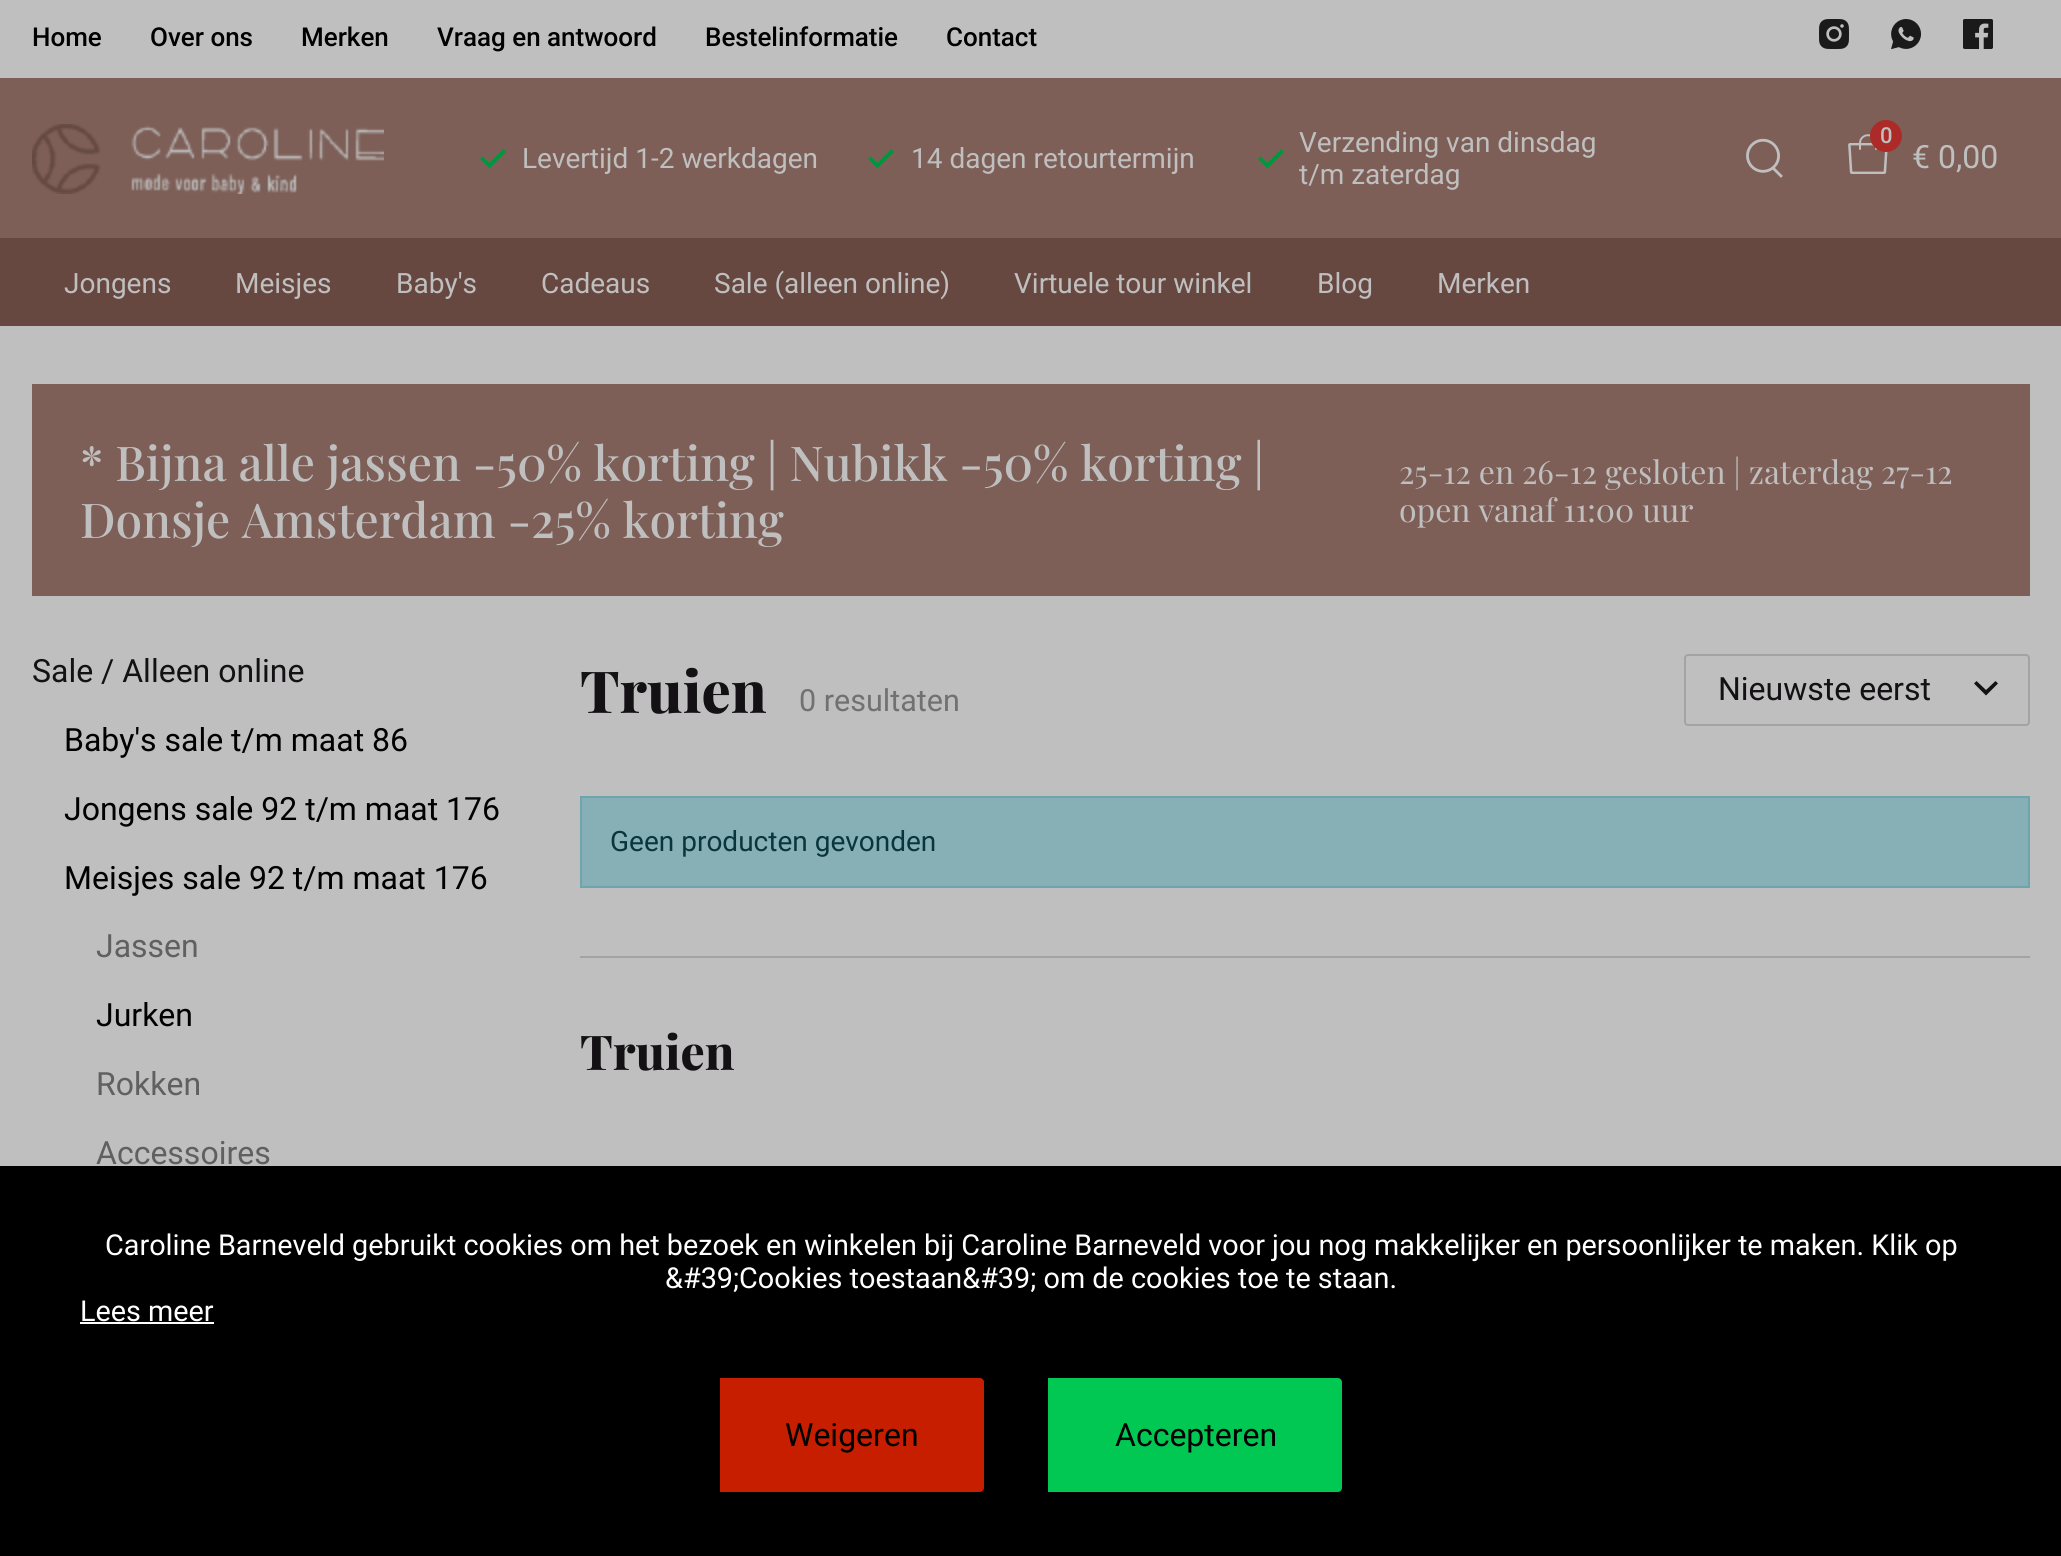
#include <cairo/cairo.h>
#include <math.h>
#include <stddef.h>

static cairo_t *cr;

static void use_color(int r, int g, int b) {
  cairo_set_source_rgb(cr, r / 255.0, g / 255.0, b / 255.0);
}

static void text(double x, double y, const char *s, const char *family, double size, int italic, int bold, int r, int g, int b) {
  cairo_select_font_face(cr, family, italic ? CAIRO_FONT_SLANT_ITALIC : CAIRO_FONT_SLANT_NORMAL,
    bold ? CAIRO_FONT_WEIGHT_BOLD : CAIRO_FONT_WEIGHT_NORMAL);
  cairo_set_font_size(cr, size);
  use_color(r, g, b);
  cairo_move_to(cr, x, y);
  cairo_show_text(cr, s);
}

static void box(double x, double y, double w, double h, int r, int g, int b) {
  use_color(r, g, b);
  cairo_rectangle(cr, x, y, w, h);
  cairo_fill(cr);
}

static void round_rect(double x, double y, double w, double h, double r) {
  cairo_new_sub_path(cr);
  cairo_arc(cr, x + w - r, y + h - r, r, 0, M_PI / 2);
  cairo_arc(cr, x + r, y + h - r, r, M_PI / 2, M_PI);
  cairo_arc(cr, x + r, y + r, r, M_PI, 1.5 * M_PI);
  cairo_arc(cr, x + w - r, y + r, r, 1.5 * M_PI, 2 * M_PI);
  cairo_close_path(cr);
}

static void picture(const char *path, double x, double y, double w, double h) {
  cairo_surface_t *image = cairo_image_surface_create_from_png(path);
  cairo_save(cr);
  cairo_set_source_surface(cr, image, x, y);
  cairo_rectangle(cr, x, y, w, h);
  cairo_fill(cr);
  cairo_restore(cr);
  cairo_surface_destroy(image);
}

static void draw(void) {
  use_color(191, 191, 191);
  cairo_paint(cr);
  picture("img_01.png", 1819, 19, 30, 30);
  picture("img_02.png", 1891, 19, 30, 31);
  picture("img_03.png", 1963, 19, 30, 30);
  box(0, 78, 2061, 160, 125, 95, 87);
  picture("img_04.png", 32, 124, 352, 70);
  use_color(0, 150, 62);
  cairo_new_path(cr);
  cairo_move_to(cr, 482.5, 156.5);
  cairo_line_to(cr, 480, 159);
  cairo_line_to(cr, 489.5, 168.5);
  cairo_line_to(cr, 506, 152);
  cairo_line_to(cr, 503.5, 149);
  cairo_line_to(cr, 489.5, 163);
  cairo_close_path(cr);
  cairo_fill(cr);
  cairo_new_path(cr);
  cairo_move_to(cr, 870.5, 156.5);
  cairo_line_to(cr, 868, 159);
  cairo_line_to(cr, 877.5, 168.5);
  cairo_line_to(cr, 894, 152);
  cairo_line_to(cr, 891.5, 149);
  cairo_line_to(cr, 877.5, 163);
  cairo_close_path(cr);
  cairo_fill(cr);
  cairo_new_path(cr);
  cairo_move_to(cr, 1260.5, 156.5);
  cairo_line_to(cr, 1258, 159);
  cairo_line_to(cr, 1267.5, 168.5);
  cairo_line_to(cr, 1284, 152);
  cairo_line_to(cr, 1281.5, 149);
  cairo_line_to(cr, 1267.5, 163);
  cairo_close_path(cr);
  cairo_fill(cr);
  picture("img_05.png", 1746, 138, 37, 40);
  picture("img_06.png", 1848, 134, 40, 40);
  use_color(172, 43, 40);
  cairo_arc(cr, 1886, 136, 16, 0, 2 * M_PI);
  cairo_fill(cr);
  box(0, 238, 2061, 88, 102, 72, 65);
  box(32, 384, 1998, 212, 125, 95, 87);
  round_rect(1685, 655, 344, 70, 3);
  use_color(163, 163, 163);
  cairo_stroke(cr);
  use_color(20, 17, 20);
  cairo_new_path(cr);
  cairo_move_to(cr, 1976.5, 681);
  cairo_line_to(cr, 1974, 683.5);
  cairo_line_to(cr, 1986, 695.5);
  cairo_line_to(cr, 1998, 683.5);
  cairo_line_to(cr, 1995.5, 681);
  cairo_line_to(cr, 1986, 690);
  cairo_close_path(cr);
  cairo_fill(cr);
  use_color(134, 176, 182);
  cairo_rectangle(cr, 581, 797, 1448, 90);
  cairo_fill_preserve(cr);
  use_color(110, 164, 174);
  cairo_stroke(cr);
  box(580, 956, 1450, 2, 163, 163, 163);
  box(0, 1166, 2061, 390, 0, 0, 0);
  box(80, 1322, 134, 2, 255, 255, 255);
  use_color(200, 30, 0);
  cairo_new_path(cr);
  cairo_move_to(cr, 720, 1378);
  cairo_line_to(cr, 980, 1378);
  cairo_curve_to(cr, 982, 1378, 984, 1380, 984, 1382);
  cairo_line_to(cr, 984, 1488);
  cairo_curve_to(cr, 984, 1490, 982, 1492, 980, 1492);
  cairo_line_to(cr, 720, 1492);
  cairo_close_path(cr);
  cairo_fill(cr);
  use_color(0, 200, 83);
  cairo_new_path(cr);
  cairo_move_to(cr, 1048, 1378);
  cairo_line_to(cr, 1338, 1378);
  cairo_curve_to(cr, 1340, 1378, 1342, 1380, 1342, 1382);
  cairo_line_to(cr, 1342, 1488);
  cairo_curve_to(cr, 1342, 1490, 1340, 1492, 1338, 1492);
  cairo_line_to(cr, 1048, 1492);
  cairo_close_path(cr);
  cairo_fill(cr);
  text(32, 46, "Home", "Roboto Medium", 26, 0, 0, 0, 0, 0);
  text(150, 46, "Over ons", "Roboto Medium", 26, 0, 0, 0, 0, 0);
  text(301, 46, "Merken", "Roboto Medium", 26, 0, 0, 0, 0, 0);
  text(437, 46, "Vraag en antwoord", "Roboto Medium", 26, 0, 0, 0, 0, 0);
  text(705, 46, "Bestelinformatie", "Roboto Medium", 26, 0, 0, 0, 0, 0);
  text(946, 46, "Contact", "Roboto Medium", 26, 0, 0, 0, 0, 0);
  text(522, 168, "Levertijd 1-2 werkdagen", "Roboto", 28, 0, 0, 191, 191, 191);
  text(911, 168, "14 dagen retourtermijn", "Roboto", 28, 0, 0, 191, 191, 191);
  text(1299, 152, "Verzending van dinsdag", "Roboto", 28, 0, 0, 191, 191, 191);
  text(1299, 184, "t/m zaterdag", "Roboto", 28, 0, 0, 191, 191, 191);
  text(1880, 143, "0", "Roboto Medium", 22, 0, 0, 191, 191, 191);
  text(1912, 168, "€ 0,00", "Roboto", 32, 0, 0, 191, 191, 191);
  text(64, 293, "Jongens", "Roboto", 28, 0, 0, 191, 191, 191);
  text(235, 293, "Meisjes", "Roboto", 28, 0, 0, 191, 191, 191);
  text(396, 293, "Baby's", "Roboto", 28, 0, 0, 191, 191, 191);
  text(541, 293, "Cadeaus", "Roboto", 28, 0, 0, 191, 191, 191);
  text(714, 293, "Sale (alleen online)", "Roboto", 28, 0, 0, 191, 191, 191);
  text(1014, 293, "Virtuele tour winkel", "Roboto", 28, 0, 0, 191, 191, 191);
  text(1317, 293, "Blog", "Roboto", 28, 0, 0, 191, 191, 191);
  text(1437, 293, "Merken", "Roboto", 28, 0, 0, 191, 191, 191);
  text(80, 481, "* Bijna alle jassen -50% korting | Nubikk -50% korting |", "Playfair Display Medium", 48, 0, 0, 191, 191, 191);
  text(80, 538, "Donsje Amsterdam -25% korting", "Playfair Display Medium", 48, 0, 0, 191, 191, 191);
  text(1399, 484, "25-12 en 26-12 gesloten | zaterdag 27-12", "Playfair Display", 32, 0, 0, 191, 191, 191);
  text(1399, 522, "open vanaf 11:00 uur", "Playfair Display", 32, 0, 0, 191, 191, 191);
  text(32, 682, "Sale / Alleen online", "Roboto", 32, 0, 0, 20, 17, 20);
  text(64, 751, "Baby's sale t/m maat 86", "Roboto", 32, 0, 0, 0, 0, 0);
  text(64, 820, "Jongens sale 92 t/m maat 176", "Roboto", 32, 0, 0, 0, 0, 0);
  text(64, 889, "Meisjes sale 92 t/m maat 176", "Roboto", 32, 0, 0, 0, 0, 0);
  text(96, 957, "Jassen", "Roboto", 32, 0, 0, 96, 96, 96);
  text(96, 1026, "Jurken", "Roboto", 32, 0, 0, 0, 0, 0);
  text(96, 1095, "Rokken", "Roboto", 32, 0, 0, 96, 96, 96);
  text(96, 1164, "Accessoires", "Roboto", 32, 0, 0, 96, 96, 96);
  text(580, 713, "Truien", "Playfair Display ExtraBold", 58, 0, 0, 20, 17, 20);
  text(799, 711, "0 resultaten", "Roboto", 30.5, 0, 0, 113, 113, 113);
  text(1718, 700, "Nieuwste eerst", "Roboto", 32, 0, 0, 20, 17, 20);
  text(610, 851, "Geen producten gevonden", "Roboto", 28, 0, 0, 9, 53, 61);
  text(580, 1070, "Truien", "Playfair Display ExtraBold", 48, 0, 0, 20, 17, 20);
  text(105, 1255, "Caroline Barneveld gebruikt cookies om het bezoek en winkelen bij Caroline Barneveld voor jou nog makkelijker en persoonlijker te maken. Klik op", "Roboto", 28.8, 0, 0, 255, 255, 255);
  text(665, 1288, "&#39;Cookies toestaan&#39; om de cookies toe te staan.", "Roboto", 28.8, 0, 0, 255, 255, 255);
  text(80, 1321, "Lees meer", "Roboto", 28.8, 0, 0, 255, 255, 255);
  text(785, 1446, "Weigeren", "Roboto", 32, 0, 0, 0, 0, 0);
  text(1115, 1446, "Accepteren", "Roboto", 32, 0, 0, 0, 0, 0);
}

int main(void) {
  cairo_surface_t *surface = cairo_image_surface_create(CAIRO_FORMAT_RGB24, 2061, 1556);
  cr = cairo_create(surface);
  cairo_font_options_t *options = cairo_font_options_create();
  cairo_font_options_set_hint_metrics(options, CAIRO_HINT_METRICS_OFF);
  cairo_font_options_set_hint_style(options, CAIRO_HINT_STYLE_NONE);
  cairo_set_font_options(cr, options);
  cairo_set_miter_limit(cr, 4);
  draw();
  cairo_surface_write_to_png(surface, "out.png");
  cairo_font_options_destroy(options);
  cairo_destroy(cr);
  cairo_surface_destroy(surface);
  return 0;
}
